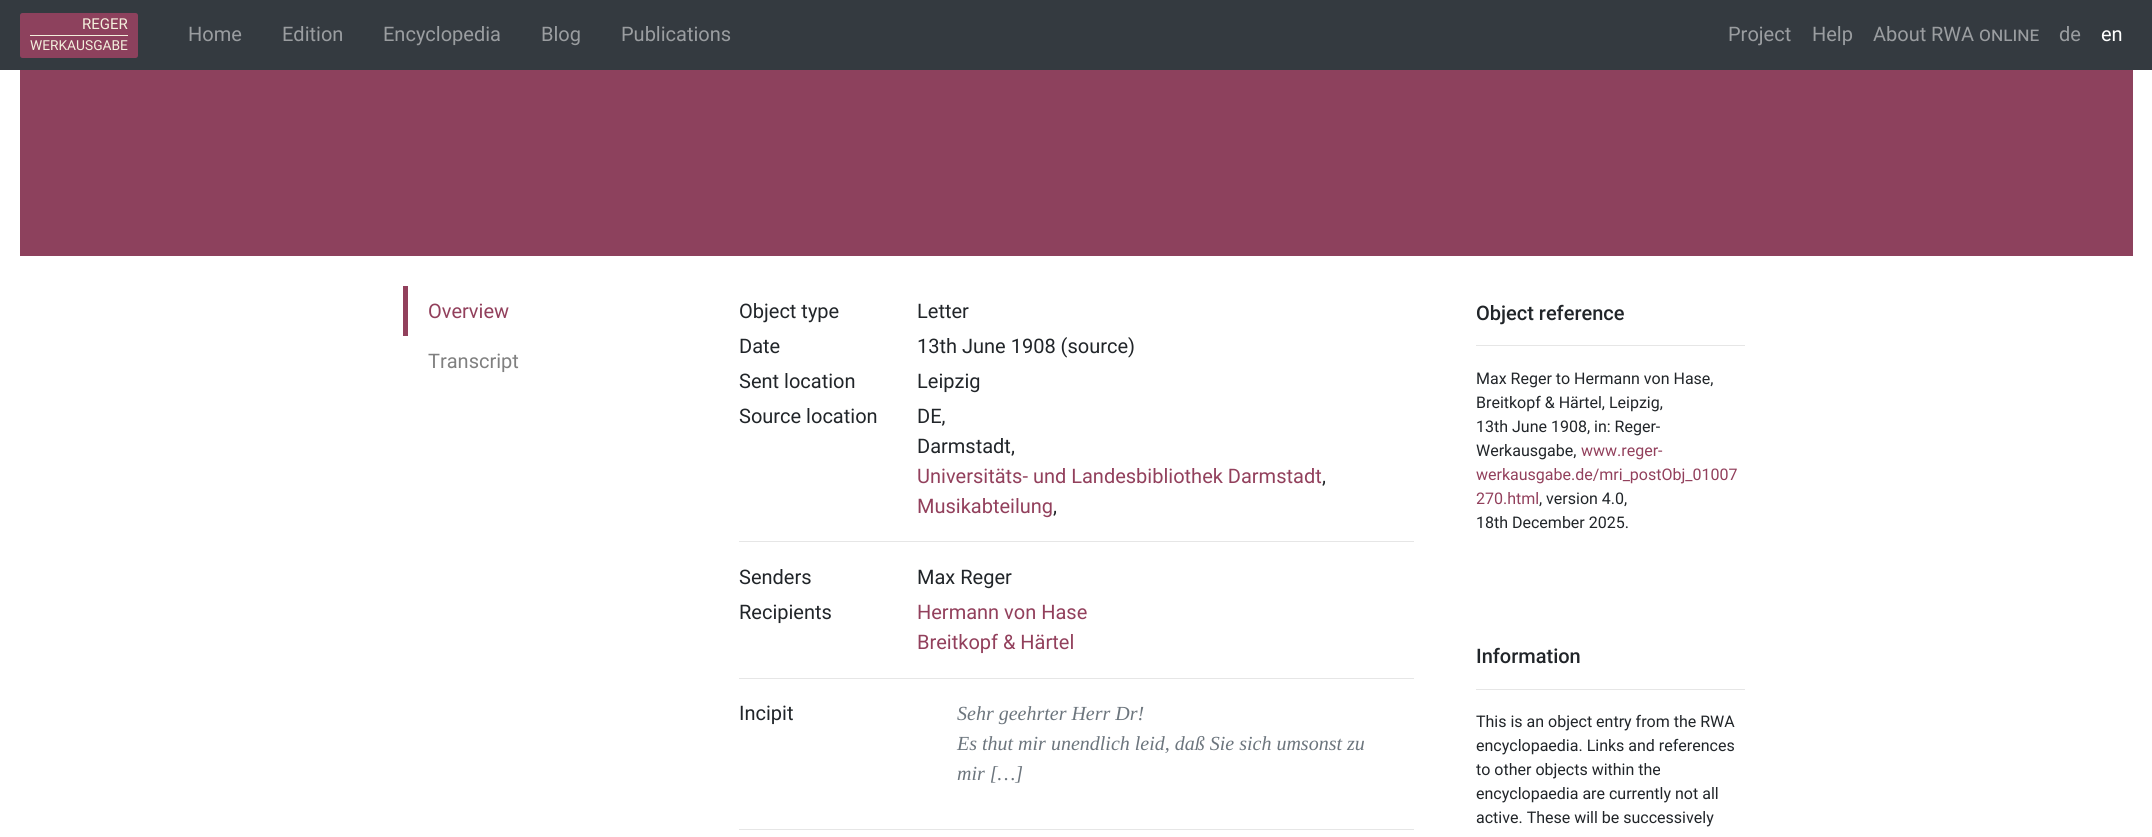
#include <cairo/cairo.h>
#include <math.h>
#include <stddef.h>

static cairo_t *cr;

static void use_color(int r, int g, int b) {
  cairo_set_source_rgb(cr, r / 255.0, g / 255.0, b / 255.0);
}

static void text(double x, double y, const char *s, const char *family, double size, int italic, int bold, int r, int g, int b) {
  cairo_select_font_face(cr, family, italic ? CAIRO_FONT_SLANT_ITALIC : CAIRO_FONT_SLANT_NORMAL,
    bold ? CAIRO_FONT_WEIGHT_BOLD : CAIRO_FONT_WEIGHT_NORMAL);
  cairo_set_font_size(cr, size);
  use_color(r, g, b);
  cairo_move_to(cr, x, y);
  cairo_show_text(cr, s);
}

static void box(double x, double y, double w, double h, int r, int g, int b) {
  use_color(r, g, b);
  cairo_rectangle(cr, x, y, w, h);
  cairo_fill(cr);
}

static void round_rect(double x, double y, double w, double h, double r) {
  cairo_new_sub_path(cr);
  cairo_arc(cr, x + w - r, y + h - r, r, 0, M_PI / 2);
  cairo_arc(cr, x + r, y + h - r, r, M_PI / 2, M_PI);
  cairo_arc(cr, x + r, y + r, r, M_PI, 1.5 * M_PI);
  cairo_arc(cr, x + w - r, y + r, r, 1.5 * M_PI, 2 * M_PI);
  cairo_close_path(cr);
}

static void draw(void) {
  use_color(255, 255, 255);
  cairo_paint(cr);
  box(0, 0, 2152, 70, 52, 58, 64);
  use_color(141, 65, 93);
  round_rect(20, 13, 118, 45, 2.5);
  cairo_fill(cr);
  box(30, 35, 98, 1, 243, 239, 220);
  box(20, 70, 2113, 186, 141, 65, 93);
  use_color(146, 64, 92);
  cairo_new_path(cr);
  cairo_move_to(cr, 403, 286);
  cairo_line_to(cr, 403, 336);
  cairo_line_to(cr, 408, 336);
  cairo_line_to(cr, 408, 286);
  cairo_line_to(cr, 539, 286);
  cairo_close_path(cr);
  cairo_fill(cr);
  box(739, 541, 675, 1, 230, 230, 230);
  box(739, 678, 675, 1, 230, 230, 230);
  box(739, 829, 675, 1, 230, 230, 230);
  box(1476, 345, 269, 1, 230, 230, 230);
  box(1476, 689, 269, 1, 230, 230, 230);
  text(82, 29, "REGER", "Roboto", 15, 0, 0, 243, 239, 220);
  text(30, 50, "WERKAUSGABE", "Roboto", 13.75, 0, 0, 243, 239, 220);
  text(188, 41, "Home", "Roboto", 20, 0, 0, 154, 157, 160);
  text(282, 41, "Edition", "Roboto", 20, 0, 0, 154, 157, 160);
  text(383, 41, "Encyclopedia", "Roboto", 20, 0, 0, 154, 157, 160);
  text(541, 41, "Blog", "Roboto", 20, 0, 0, 154, 157, 160);
  text(621, 41, "Publications", "Roboto", 20, 0, 0, 154, 157, 160);
  text(1728, 41, "Project", "Roboto", 20, 0, 0, 154, 157, 160);
  text(1812, 41, "Help", "Roboto", 20, 0, 0, 154, 157, 160);
  text(1873, 41, "About", "Roboto", 20, 0, 0, 154, 157, 160);
  text(1931, 41, "RWA online", "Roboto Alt", 20, 0, 0, 154, 157, 160);
  text(2059, 41, "de", "Roboto", 20, 0, 0, 154, 157, 160);
  text(2101, 41, "en", "Roboto", 20, 0, 0, 255, 255, 255);
  text(428, 318, "Overview", "Roboto", 20, 0, 0, 146, 64, 92);
  text(428, 368, "Transcript", "Roboto", 20, 0, 0, 128, 128, 128);
  text(739, 318, "Object type", "Roboto", 20, 0, 0, 33, 37, 41);
  text(917, 318, "Letter", "Roboto", 20, 0, 0, 33, 37, 41);
  text(739, 353, "Date", "Roboto", 20, 0, 0, 33, 37, 41);
  text(917, 353, "13th June 1908 (source)", "Roboto", 20, 0, 0, 33, 37, 41);
  text(739, 388, "Sent location", "Roboto", 20, 0, 0, 33, 37, 41);
  text(917, 388, "Leipzig", "Roboto", 20, 0, 0, 33, 37, 41);
  text(739, 423, "Source location", "Roboto", 20, 0, 0, 33, 37, 41);
  text(917, 423, "DE,", "Roboto", 20, 0, 0, 33, 37, 41);
  text(917, 453, "Darmstadt,", "Roboto", 20, 0, 0, 33, 37, 41);
  text(917, 483, "Universitäts- und Landesbibliothek Darmstadt", "Roboto", 20, 0, 0, 146, 64, 92);
  text(1322, 483, ",", "Roboto", 20, 0, 0, 33, 37, 41);
  text(917, 513, "Musikabteilung", "Roboto", 20, 0, 0, 146, 64, 92);
  text(1053, 513, ",", "Roboto", 20, 0, 0, 33, 37, 41);
  text(739, 584, "Senders", "Roboto", 20, 0, 0, 33, 37, 41);
  text(917, 584, "Max Reger", "Roboto", 20, 0, 0, 33, 37, 41);
  text(739, 619, "Recipients", "Roboto", 20, 0, 0, 33, 37, 41);
  text(917, 619, "Hermann von Hase", "Roboto", 20, 0, 0, 146, 64, 92);
  text(917, 649, "Breitkopf & Härtel", "Roboto", 20, 0, 0, 146, 64, 92);
  text(739, 720, "Incipit", "Roboto", 20, 0, 0, 33, 37, 41);
  text(957, 720, "Sehr geehrter Herr Dr!", "Liberation Serif", 20, 1, 0, 108, 117, 125);
  text(957, 750, "Es thut mir unendlich leid, daß Sie sich umsonst zu", "Liberation Serif", 20, 1, 0, 108, 117, 125);
  text(957, 780, "mir […]", "Liberation Serif", 20, 1, 0, 108, 117, 125);
  text(1476, 320, "Object reference", "Roboto Medium", 20, 0, 0, 33, 37, 41);
  text(1476, 384, "Max Reger to Hermann von Hase,", "Roboto", 16, 0, 0, 33, 37, 41);
  text(1476, 408, "Breitkopf & Härtel, Leipzig,", "Roboto", 16, 0, 0, 33, 37, 41);
  text(1476, 432, "13th June 1908, in: Reger-", "Roboto", 16, 0, 0, 33, 37, 41);
  text(1476, 456, "Werkausgabe,", "Roboto", 16, 0, 0, 33, 37, 41);
  text(1581, 456, "www.reger-", "Roboto", 16, 0, 0, 146, 64, 92);
  text(1476, 480, "werkausgabe.de/mri_postObj_01007", "Roboto", 16, 0, 0, 146, 64, 92);
  text(1476, 504, "270.html", "Roboto", 16, 0, 0, 146, 64, 92);
  text(1539, 504, ", version 4.0,", "Roboto", 16, 0, 0, 33, 37, 41);
  text(1476, 528, "18th December 2025.", "Roboto", 16, 0, 0, 33, 37, 41);
  text(1476, 663, "Information", "Roboto Medium", 20, 0, 0, 33, 37, 41);
  text(1476, 727, "This is an object entry from the RWA", "Roboto", 16, 0, 0, 33, 37, 41);
  text(1476, 751, "encyclopaedia. Links and references", "Roboto", 16, 0, 0, 33, 37, 41);
  text(1476, 775, "to other objects within the", "Roboto", 16, 0, 0, 33, 37, 41);
  text(1476, 799, "encyclopaedia are currently not all", "Roboto", 16, 0, 0, 33, 37, 41);
  text(1476, 823, "active. These will be successively", "Roboto", 16, 0, 0, 33, 37, 41);
}

int main(void) {
  cairo_surface_t *surface = cairo_image_surface_create(CAIRO_FORMAT_RGB24, 2152, 837);
  cr = cairo_create(surface);
  cairo_font_options_t *options = cairo_font_options_create();
  cairo_font_options_set_hint_metrics(options, CAIRO_HINT_METRICS_OFF);
  cairo_font_options_set_hint_style(options, CAIRO_HINT_STYLE_NONE);
  cairo_set_font_options(cr, options);
  cairo_set_miter_limit(cr, 4);
  draw();
  cairo_surface_write_to_png(surface, "out.png");
  cairo_font_options_destroy(options);
  cairo_destroy(cr);
  cairo_surface_destroy(surface);
  return 0;
}
